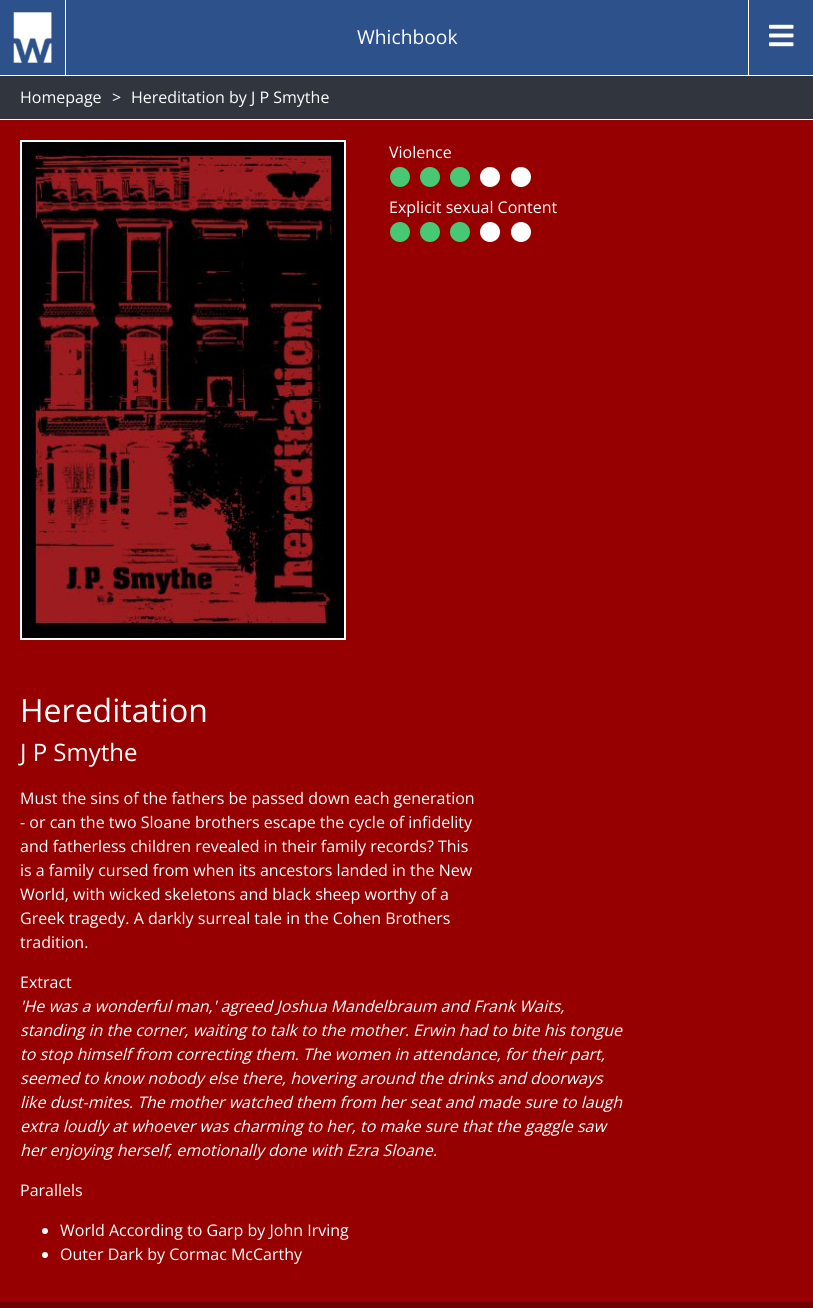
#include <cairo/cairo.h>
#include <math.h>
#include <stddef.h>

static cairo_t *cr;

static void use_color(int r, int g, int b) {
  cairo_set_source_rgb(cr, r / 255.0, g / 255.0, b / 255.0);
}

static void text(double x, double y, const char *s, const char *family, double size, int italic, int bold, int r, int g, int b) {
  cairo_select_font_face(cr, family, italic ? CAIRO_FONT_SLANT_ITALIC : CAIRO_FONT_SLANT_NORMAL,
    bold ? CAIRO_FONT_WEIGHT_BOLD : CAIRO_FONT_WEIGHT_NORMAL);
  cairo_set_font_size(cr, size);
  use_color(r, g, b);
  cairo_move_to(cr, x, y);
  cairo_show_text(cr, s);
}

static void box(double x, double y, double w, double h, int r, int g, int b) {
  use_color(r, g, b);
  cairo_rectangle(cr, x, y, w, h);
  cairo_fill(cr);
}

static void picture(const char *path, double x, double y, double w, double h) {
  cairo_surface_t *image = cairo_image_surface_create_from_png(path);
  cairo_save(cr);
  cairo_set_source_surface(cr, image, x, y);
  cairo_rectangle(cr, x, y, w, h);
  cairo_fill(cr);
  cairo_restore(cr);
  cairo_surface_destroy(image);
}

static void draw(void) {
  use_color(49, 53, 61);
  cairo_paint(cr);
  box(0, 0, 813, 75, 45, 81, 139);
  box(0, 75, 813, 1, 255, 255, 255);
  box(65, 0, 1, 75, 255, 255, 255);
  picture("img_01.png", 13, 12, 39, 51);
  box(748, 0, 1, 75, 255, 255, 255);
  picture("img_02.png", 769, 24, 25, 23);
  box(0, 119, 813, 1, 255, 255, 255);
  box(0, 120, 813, 1182, 150, 0, 0);
  cairo_rectangle(cr, 21, 141, 324, 498);
  use_color(255, 255, 255);
  cairo_stroke(cr);
  picture("img_03.png", 22, 142, 322, 496);
  use_color(72, 199, 116);
  cairo_arc(cr, 400, 177, 10, 0, 2 * M_PI);
  cairo_fill(cr);
  cairo_arc(cr, 430, 177, 10, 0, 2 * M_PI);
  cairo_fill(cr);
  cairo_arc(cr, 460, 177, 10, 0, 2 * M_PI);
  cairo_fill(cr);
  use_color(255, 255, 255);
  cairo_arc(cr, 490, 177, 10, 0, 2 * M_PI);
  cairo_fill(cr);
  cairo_arc(cr, 521, 177, 10, 0, 2 * M_PI);
  cairo_fill(cr);
  use_color(72, 199, 116);
  cairo_arc(cr, 400, 232, 10, 0, 2 * M_PI);
  cairo_fill(cr);
  cairo_arc(cr, 430, 232, 10, 0, 2 * M_PI);
  cairo_fill(cr);
  cairo_arc(cr, 460, 232, 10, 0, 2 * M_PI);
  cairo_fill(cr);
  use_color(255, 255, 255);
  cairo_arc(cr, 490, 232, 10, 0, 2 * M_PI);
  cairo_fill(cr);
  cairo_arc(cr, 521, 232, 10, 0, 2 * M_PI);
  cairo_fill(cr);
  cairo_arc(cr, 45, 1231, 3, 0, 2 * M_PI);
  cairo_fill(cr);
  cairo_arc(cr, 45, 1255, 3, 0, 2 * M_PI);
  cairo_fill(cr);
  box(0, 1302, 813, 6, 113, 0, 0);
  text(357, 44, "Whichbook", "Open Sans", 19.25, 0, 0, 255, 255, 255);
  text(20, 103, "Homepage", "Open Sans", 16, 0, 0, 255, 255, 255);
  text(112, 103, ">", "Open Sans", 16, 0, 0, 255, 255, 255);
  text(131, 103, "Hereditation by J P Smythe", "Open Sans", 16, 0, 0, 255, 255, 255);
  text(389, 158, "Violence", "Open Sans", 16, 0, 0, 255, 255, 255);
  text(389, 213, "Explicit sexual Content", "Open Sans", 16, 0, 0, 255, 255, 255);
  text(20, 722, "Hereditation", "Open Sans", 32, 0, 0, 255, 255, 255);
  text(20, 761, "J P Smythe", "Open Sans", 24, 0, 0, 255, 255, 255);
  text(20, 804, "Must the sins of the fathers be passed down each generation", "Open Sans", 16, 0, 0, 255, 255, 255);
  text(20, 828, "- or can the two Sloane brothers escape the cycle of infidelity", "Open Sans", 16, 0, 0, 255, 255, 255);
  text(20, 852, "and fatherless children revealed in their family records? This", "Open Sans", 16, 0, 0, 255, 255, 255);
  text(20, 876, "is a family cursed from when its ancestors landed in the New", "Open Sans", 16, 0, 0, 255, 255, 255);
  text(20, 900, "World, with wicked skeletons and black sheep worthy of a", "Open Sans", 16, 0, 0, 255, 255, 255);
  text(20, 924, "Greek tragedy. A darkly surreal tale in the Cohen Brothers", "Open Sans", 16, 0, 0, 255, 255, 255);
  text(20, 948, "tradition.", "Open Sans", 16, 0, 0, 255, 255, 255);
  text(20, 988, "Extract", "Open Sans", 16, 0, 0, 255, 255, 255);
  text(20, 1012, "'He was a wonderful man,' agreed Joshua Mandelbraum and Frank Waits,", "Open Sans", 16, 1, 0, 255, 255, 255);
  text(20, 1036, "standing in the corner, waiting to talk to the mother. Erwin had to bite his tongue", "Open Sans", 16, 1, 0, 255, 255, 255);
  text(20, 1060, "to stop himself from correcting them. The women in attendance, for their part,", "Open Sans", 16, 1, 0, 255, 255, 255);
  text(20, 1084, "seemed to know nobody else there, hovering around the drinks and doorways", "Open Sans", 16, 1, 0, 255, 255, 255);
  text(20, 1108, "like dust-mites. The mother watched them from her seat and made sure to laugh", "Open Sans", 16, 1, 0, 255, 255, 255);
  text(20, 1132, "extra loudly at whoever was charming to her, to make sure that the gaggle saw", "Open Sans", 16, 1, 0, 255, 255, 255);
  text(20, 1156, "her enjoying herself, emotionally done with Ezra Sloane.", "Open Sans", 16, 1, 0, 255, 255, 255);
  text(20, 1196, "Parallels", "Open Sans", 16, 0, 0, 255, 255, 255);
  text(60, 1236, "World According to Garp by John Irving", "Open Sans", 16, 0, 0, 255, 255, 255);
  text(60, 1260, "Outer Dark by Cormac McCarthy", "Open Sans", 16, 0, 0, 255, 255, 255);
}

int main(void) {
  cairo_surface_t *surface = cairo_image_surface_create(CAIRO_FORMAT_RGB24, 813, 1308);
  cr = cairo_create(surface);
  cairo_font_options_t *options = cairo_font_options_create();
  cairo_font_options_set_hint_metrics(options, CAIRO_HINT_METRICS_OFF);
  cairo_font_options_set_hint_style(options, CAIRO_HINT_STYLE_NONE);
  cairo_set_font_options(cr, options);
  cairo_set_miter_limit(cr, 4);
  draw();
  cairo_surface_write_to_png(surface, "out.png");
  cairo_font_options_destroy(options);
  cairo_destroy(cr);
  cairo_surface_destroy(surface);
  return 0;
}
